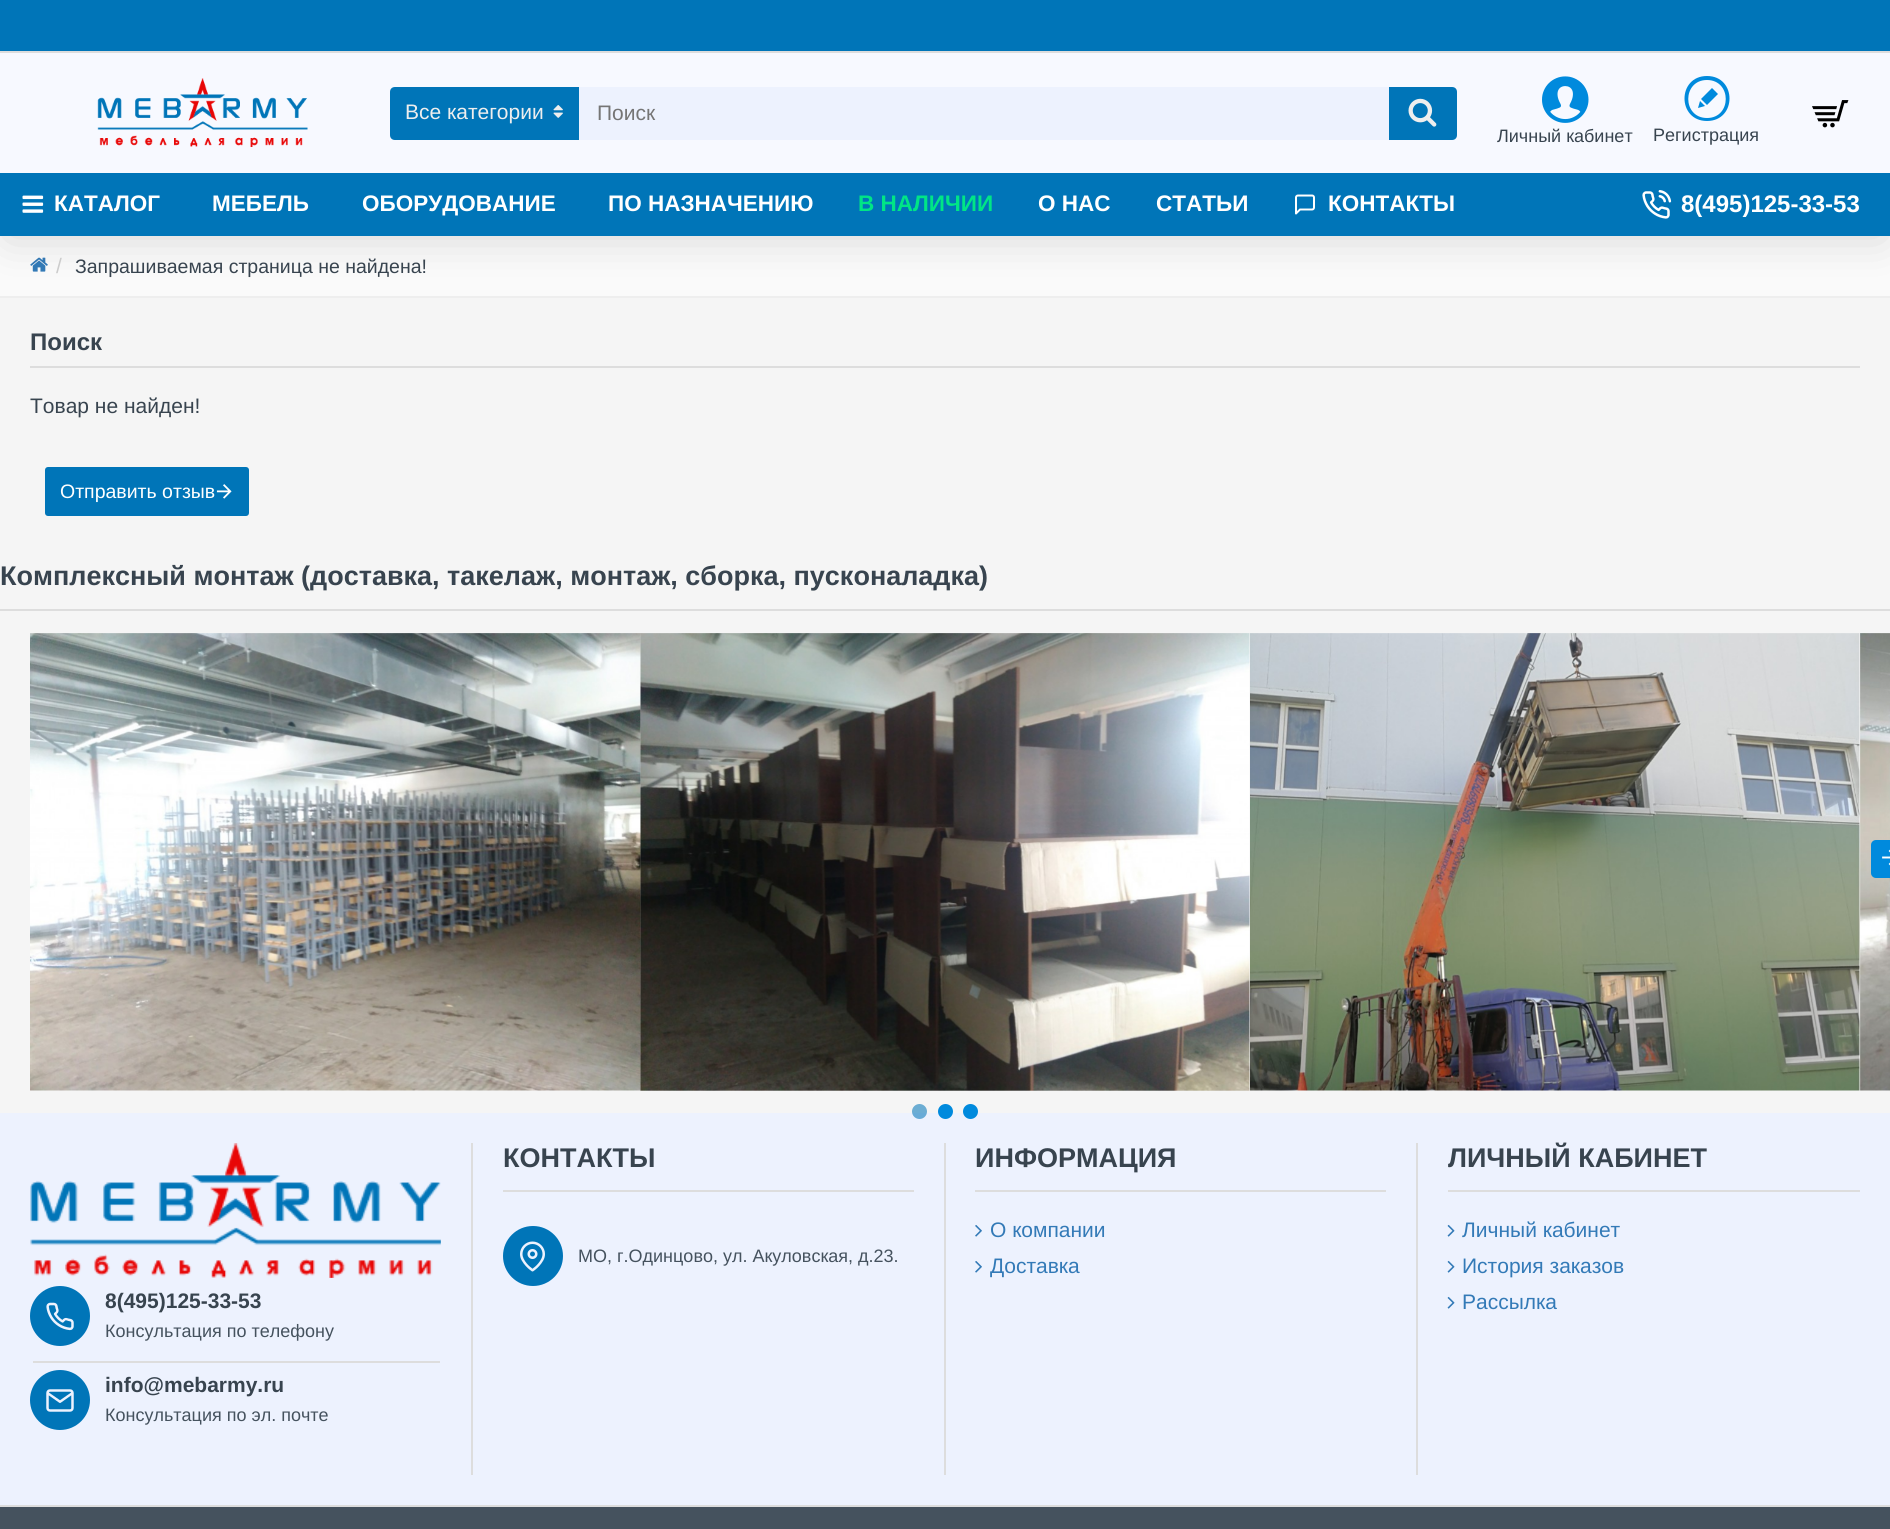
#include <cairo/cairo.h>
#include <math.h>
#include <stddef.h>

static cairo_t *cr;

static void use_color(int r, int g, int b) {
  cairo_set_source_rgb(cr, r / 255.0, g / 255.0, b / 255.0);
}

static void text(double x, double y, const char *s, const char *family, double size, int italic, int bold, int r, int g, int b) {
  cairo_select_font_face(cr, family, italic ? CAIRO_FONT_SLANT_ITALIC : CAIRO_FONT_SLANT_NORMAL,
    bold ? CAIRO_FONT_WEIGHT_BOLD : CAIRO_FONT_WEIGHT_NORMAL);
  cairo_set_font_size(cr, size);
  use_color(r, g, b);
  cairo_move_to(cr, x, y);
  cairo_show_text(cr, s);
}

static void box(double x, double y, double w, double h, int r, int g, int b) {
  use_color(r, g, b);
  cairo_rectangle(cr, x, y, w, h);
  cairo_fill(cr);
}

static void round_rect(double x, double y, double w, double h, double r) {
  cairo_new_sub_path(cr);
  cairo_arc(cr, x + w - r, y + h - r, r, 0, M_PI / 2);
  cairo_arc(cr, x + r, y + h - r, r, M_PI / 2, M_PI);
  cairo_arc(cr, x + r, y + r, r, M_PI, 1.5 * M_PI);
  cairo_arc(cr, x + w - r, y + r, r, 1.5 * M_PI, 2 * M_PI);
  cairo_close_path(cr);
}

static void shadow(double x, double y, double w, double h, double r, double blur, double alpha) {
  cairo_push_group_with_content(cr, CAIRO_CONTENT_ALPHA);
  cairo_set_operator(cr, CAIRO_OPERATOR_SOURCE);
  for (int i = 15; i >= -15 && fmin(w, h) + blur * i / 3 > 0; i -= 2) {
    double e = blur * i / 6;
    cairo_set_source_rgba(cr, 0, 0, 0, alpha * erfc((i - 1) / 8.5) / 2);
    round_rect(x - e, y - e, w + 2 * e, h + 2 * e, fmax(0, fmin(r + e + blur * .6, fmin(w, h) / 2 + e)));
    cairo_fill(cr);
  }
  cairo_pattern_t *soft = cairo_pop_group(cr);
  cairo_mask(cr, soft);
  cairo_pattern_destroy(soft);
}

static void picture(const char *path, double x, double y, double w, double h) {
  cairo_surface_t *image = cairo_image_surface_create_from_png(path);
  cairo_save(cr);
  cairo_set_source_surface(cr, image, x, y);
  cairo_rectangle(cr, x, y, w, h);
  cairo_fill(cr);
  cairo_restore(cr);
  cairo_surface_destroy(image);
}

static void draw(void) {
  use_color(245, 245, 245);
  cairo_paint(cr);
  box(0, 236, 1890, 60, 250, 250, 250);
  box(0, 296, 1890, 2, 238, 238, 238);
  picture("img_09.png", 30, 257, 18, 15);
  use_color(0, 0, 0);
  shadow(8, 15, 1875, 221, 0, 22.5, 0.15);
  box(0, 53, 1890, 120, 247, 249, 255);
  box(0, 0, 1890, 51, 0, 117, 184);
  box(0, 51, 1890, 2, 221, 221, 221);
  picture("img_01.png", 97, 78, 211, 69);
  use_color(0, 117, 184);
  cairo_new_path(cr);
  cairo_move_to(cr, 395, 87);
  cairo_line_to(cr, 579, 87);
  cairo_line_to(cr, 579, 140);
  cairo_line_to(cr, 395, 140);
  cairo_curve_to(cr, 392, 140, 390, 138, 390, 135);
  cairo_line_to(cr, 390, 92);
  cairo_curve_to(cr, 390, 89, 392, 87, 395, 87);
  cairo_close_path(cr);
  cairo_fill(cr);
  picture("img_02.png", 553, 105, 10, 13);
  box(579, 87, 810, 53, 237, 242, 254);
  use_color(0, 117, 184);
  cairo_new_path(cr);
  cairo_move_to(cr, 1389, 87);
  cairo_line_to(cr, 1452, 87);
  cairo_curve_to(cr, 1455, 87, 1457, 89, 1457, 92);
  cairo_line_to(cr, 1457, 135);
  cairo_curve_to(cr, 1457, 138, 1455, 140, 1452, 140);
  cairo_line_to(cr, 1389, 140);
  cairo_close_path(cr);
  cairo_fill(cr);
  picture("img_03.png", 1408, 98, 29, 29);
  picture("img_04.png", 1812, 100, 37, 28);
  picture("img_05.png", 1542, 76, 47, 47);
  use_color(0, 138, 221);
  cairo_new_path(cr);
  cairo_move_to(cr, 1707, 80);
  cairo_curve_to(cr, 1732, 80, 1732, 118, 1707, 118);
  cairo_curve_to(cr, 1682, 118, 1682, 80, 1707, 80);
  cairo_close_path(cr);
  cairo_move_to(cr, 1707, 76);
  cairo_curve_to(cr, 1677, 76, 1677, 121, 1707, 121);
  cairo_curve_to(cr, 1737, 121, 1737, 76, 1707, 76);
  cairo_close_path(cr);
  cairo_move_to(cr, 1700, 101);
  cairo_line_to(cr, 1705, 106);
  cairo_line_to(cr, 1698, 108);
  cairo_close_path(cr);
  cairo_move_to(cr, 1718, 94);
  cairo_line_to(cr, 1707, 105);
  cairo_line_to(cr, 1701, 99);
  cairo_line_to(cr, 1712, 88);
  cairo_close_path(cr);
  cairo_fill(cr);
  box(0, 173, 1890, 63, 0, 117, 184);
  picture("img_06.png", 22, 195, 22, 18);
  picture("img_07.png", 1295, 194, 20, 21);
  picture("img_08.png", 1642, 190, 30, 29);
  box(30, 366, 1830, 2, 221, 221, 221);
  use_color(0, 117, 184);
  round_rect(45, 467, 204, 49, 3);
  cairo_fill(cr);
  picture("img_10.png", 216, 484, 16, 15);
  box(0, 609, 1890, 2, 221, 221, 221);
  picture("img_11.png", 30, 633, 611, 458);
  picture("img_12.png", 640, 633, 610, 458);
  picture("img_13.png", 1250, 633, 610, 458);
  picture("img_14.png", 1860, 633, 30, 458);
  use_color(0, 138, 221);
  round_rect(1871, 840, 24, 38, 5);
  cairo_fill(cr);
  picture("img_15.png", 1882, 849, 8, 17);
  box(0, 1113, 1890, 392, 237, 242, 254);
  cairo_set_source_rgba(cr, 0, 0.459, 0.722, 0.56);
  cairo_arc(cr, 919.5, 1111.5, 7.5, 0, 2 * M_PI);
  cairo_fill(cr);
  use_color(0, 138, 221);
  cairo_arc(cr, 945.5, 1111.5, 7.5, 0, 2 * M_PI);
  cairo_fill(cr);
  cairo_arc(cr, 970.5, 1111.5, 7.5, 0, 2 * M_PI);
  cairo_fill(cr);
  box(944, 1143, 2, 332, 221, 221, 221);
  box(503, 1190, 411, 2, 221, 221, 221);
  use_color(0, 117, 184);
  cairo_arc(cr, 533, 1256, 30, 0, 2 * M_PI);
  cairo_fill(cr);
  picture("img_16.png", 520, 1241, 25, 31);
  box(1416, 1143, 2, 332, 221, 221, 221);
  box(975, 1190, 411, 2, 221, 221, 221);
  picture("img_17.png", 975, 1225, 7, 12);
  picture("img_17.png", 975, 1261, 7, 12);
  box(1448, 1190, 412, 2, 221, 221, 221);
  picture("img_18.png", 1447, 1224, 8, 13);
  picture("img_18.png", 1447, 1260, 8, 13);
  picture("img_18.png", 1447, 1296, 8, 13);
  box(471, 1143, 2, 332, 221, 221, 221);
  picture("img_19.png", 30, 1143, 411, 135);
  box(33, 1361, 407, 2, 221, 221, 221);
  use_color(0, 117, 184);
  cairo_arc(cr, 60, 1316, 30, 0, 2 * M_PI);
  cairo_fill(cr);
  picture("img_20.png", 46, 1302, 28, 29);
  cairo_arc(cr, 60, 1400, 30, 0, 2 * M_PI);
  cairo_fill(cr);
  picture("img_21.png", 46, 1389, 28, 23);
  box(0, 1507, 1890, 22, 69, 82, 94);
  box(0, 1505, 1890, 2, 221, 221, 221);
  text(405, 119, "Все категории", "Liberation Sans", 21, 0, 0, 238, 238, 238);
  text(597, 120, "Поиск", "Liberation Sans", 21, 0, 0, 117, 117, 117);
  text(1497, 142, "Личный кабинет", "Liberation Sans", 18, 0, 0, 56, 68, 79);
  text(1653, 141, "Регистрация", "Liberation Sans", 18, 0, 0, 56, 68, 79);
  text(54, 211, "КАТАЛОГ", "Liberation Sans", 22.5, 0, 1, 255, 255, 255);
  text(212, 211, "МЕБЕЛЬ", "Liberation Sans", 22.5, 0, 1, 255, 255, 255);
  text(362, 211, "ОБОРУДОВАНИЕ", "Liberation Sans", 22.5, 0, 1, 255, 255, 255);
  text(608, 211, "ПО НАЗНАЧЕНИЮ", "Liberation Sans", 22.5, 0, 1, 255, 255, 255);
  text(858, 211, "В НАЛИЧИИ", "Liberation Sans", 22.5, 0, 1, 0, 229, 134);
  text(1038, 211, "О НАС", "Liberation Sans", 22.5, 0, 1, 255, 255, 255);
  text(1156, 211, "СТАТЬИ", "Liberation Sans", 22.5, 0, 1, 255, 255, 255);
  text(1328, 211, "КОНТАКТЫ", "Liberation Sans", 22.5, 0, 1, 255, 255, 255);
  text(1681, 212, "8(495)125-33-53", "Liberation Sans", 24, 0, 1, 255, 255, 255);
  text(56, 273, "/", "Liberation Sans", 21, 0, 0, 204, 204, 204);
  text(75, 273, "Запрашиваемая страница не найдена!", "Liberation Sans", 19.5, 0, 0, 56, 68, 79);
  text(30, 350, "Поиск", "Liberation Sans", 24, 0, 1, 56, 68, 79);
  text(30, 413, "Товар не найден!", "Liberation Sans", 21, 0, 0, 56, 68, 79);
  text(60, 498, "Отправить отзыв", "Liberation Sans", 19.5, 0, 0, 255, 255, 255);
  text(0, 585, "Комплексный монтаж (доставка, такелаж, монтаж, сборка, пусконаладка)", "Liberation Sans", 27, 0, 1, 56, 68, 79);
  text(503, 1167, "КОНТАКТЫ", "Liberation Sans", 27, 0, 1, 56, 68, 79);
  text(578, 1262, "МО, г.Одинцово, ул. Акуловская, д.23.", "Liberation Sans", 18, 0, 0, 69, 82, 94);
  text(975, 1167, "ИНФОРМАЦИЯ", "Liberation Sans", 27, 0, 1, 56, 68, 79);
  text(990, 1237, "О компании", "Liberation Sans", 21, 0, 0, 51, 122, 183);
  text(990, 1273, "Доставка", "Liberation Sans", 21, 0, 0, 51, 122, 183);
  text(1448, 1167, "ЛИЧНЫЙ КАБИНЕТ", "Liberation Sans", 27, 0, 1, 56, 68, 79);
  text(1462, 1237, "Личный кабинет", "Liberation Sans", 21, 0, 0, 51, 122, 183);
  text(1462, 1273, "История заказов", "Liberation Sans", 21, 0, 0, 51, 122, 183);
  text(1462, 1309, "Рассылка", "Liberation Sans", 21, 0, 0, 51, 122, 183);
  text(105, 1308, "8(495)125-33-53", "Liberation Sans", 21, 0, 1, 56, 68, 79);
  text(105, 1337, "Консультация по телефону", "Liberation Sans", 18, 0, 0, 69, 82, 94);
  text(105, 1392, "info@mebarmy.ru", "Liberation Sans", 21, 0, 1, 56, 68, 79);
  text(105, 1421, "Консультация по эл. почте", "Liberation Sans", 18, 0, 0, 69, 82, 94);
}

int main(void) {
  cairo_surface_t *surface = cairo_image_surface_create(CAIRO_FORMAT_RGB24, 1890, 1529);
  cr = cairo_create(surface);
  cairo_font_options_t *options = cairo_font_options_create();
  cairo_font_options_set_hint_metrics(options, CAIRO_HINT_METRICS_OFF);
  cairo_font_options_set_hint_style(options, CAIRO_HINT_STYLE_NONE);
  cairo_set_font_options(cr, options);
  cairo_set_miter_limit(cr, 4);
  draw();
  cairo_surface_write_to_png(surface, "out.png");
  cairo_font_options_destroy(options);
  cairo_destroy(cr);
  cairo_surface_destroy(surface);
  return 0;
}
